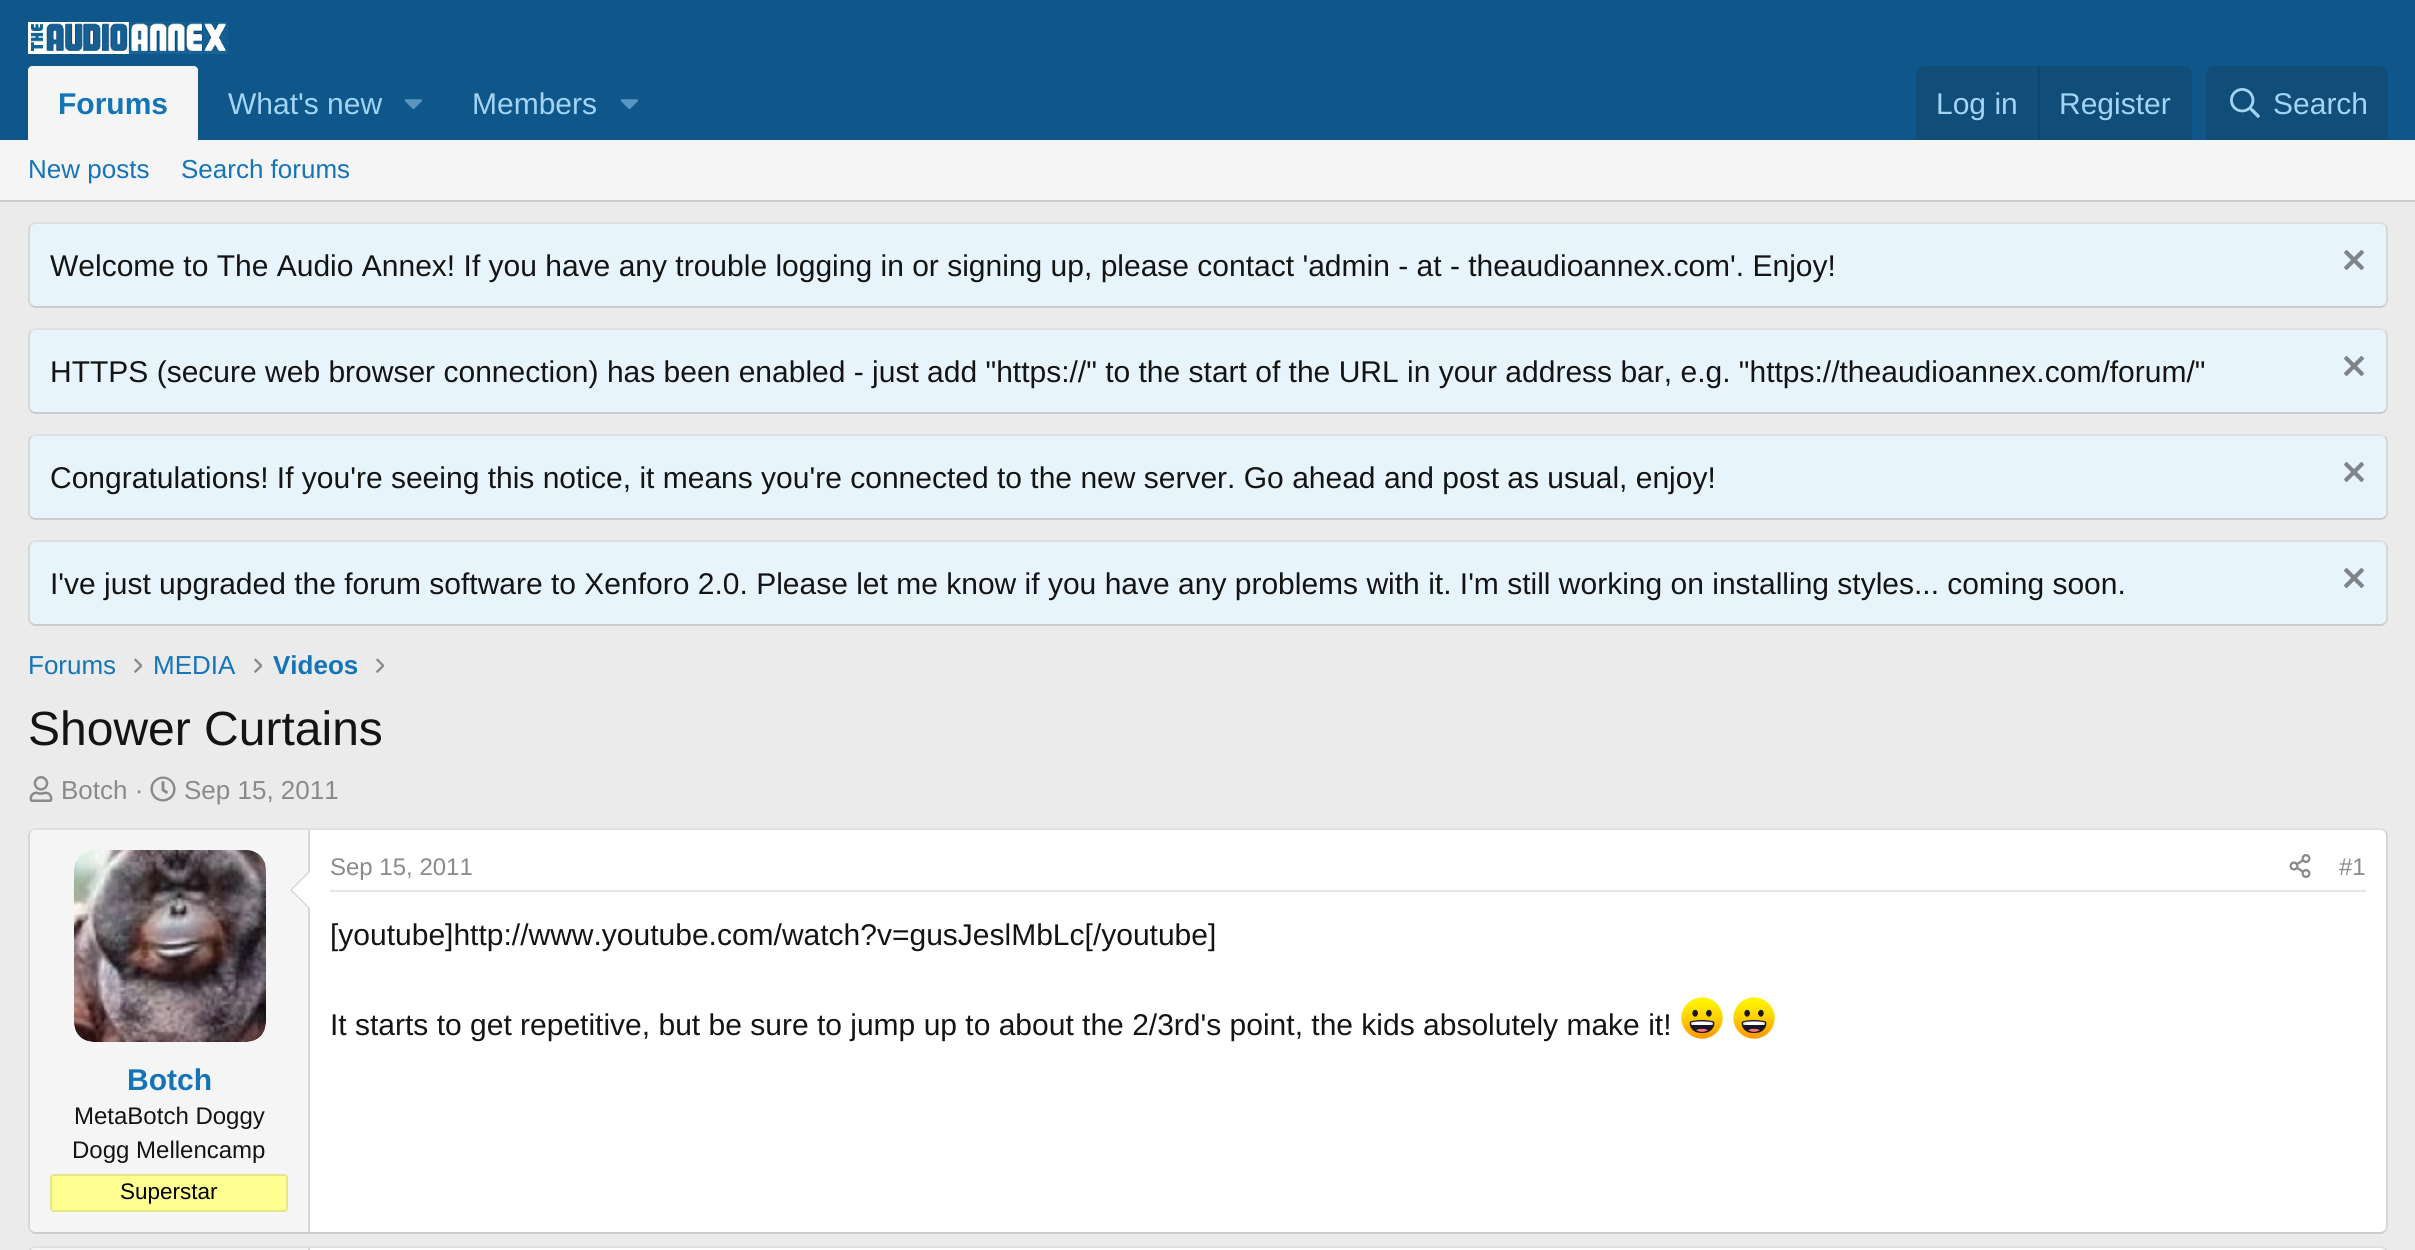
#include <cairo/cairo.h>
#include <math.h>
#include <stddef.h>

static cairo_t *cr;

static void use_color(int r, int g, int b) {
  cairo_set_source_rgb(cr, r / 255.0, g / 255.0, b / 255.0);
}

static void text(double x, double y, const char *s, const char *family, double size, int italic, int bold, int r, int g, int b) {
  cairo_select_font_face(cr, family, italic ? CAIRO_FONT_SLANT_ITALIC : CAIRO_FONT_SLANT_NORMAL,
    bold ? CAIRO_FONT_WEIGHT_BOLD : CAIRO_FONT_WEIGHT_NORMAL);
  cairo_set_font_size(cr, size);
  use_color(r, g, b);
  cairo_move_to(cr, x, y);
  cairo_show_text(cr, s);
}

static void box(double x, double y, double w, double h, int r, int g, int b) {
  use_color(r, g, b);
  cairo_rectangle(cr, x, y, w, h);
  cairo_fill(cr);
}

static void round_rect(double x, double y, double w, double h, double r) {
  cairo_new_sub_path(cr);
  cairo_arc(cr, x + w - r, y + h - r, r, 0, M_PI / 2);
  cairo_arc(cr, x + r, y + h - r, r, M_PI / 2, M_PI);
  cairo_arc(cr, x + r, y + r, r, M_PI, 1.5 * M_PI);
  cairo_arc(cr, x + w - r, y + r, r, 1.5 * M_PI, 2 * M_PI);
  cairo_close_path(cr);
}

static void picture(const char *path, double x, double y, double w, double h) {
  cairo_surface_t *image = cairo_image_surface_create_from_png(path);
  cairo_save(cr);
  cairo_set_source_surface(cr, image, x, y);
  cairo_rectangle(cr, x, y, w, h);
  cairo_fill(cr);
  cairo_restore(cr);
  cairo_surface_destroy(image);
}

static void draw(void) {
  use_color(235, 235, 235);
  cairo_paint(cr);
  box(0, 0, 2415, 140, 15, 87, 138);
  picture("img_01.png", 28, 22, 200, 32);
  use_color(245, 245, 245);
  cairo_new_path(cr);
  cairo_move_to(cr, 32, 66);
  cairo_line_to(cr, 194, 66);
  cairo_curve_to(cr, 196, 66, 198, 68, 198, 70);
  cairo_line_to(cr, 198, 140);
  cairo_line_to(cr, 28, 140);
  cairo_line_to(cr, 28, 70);
  cairo_curve_to(cr, 28, 68, 30, 66, 32, 66);
  cairo_close_path(cr);
  cairo_fill(cr);
  picture("img_02.png", 404, 99, 18, 11);
  picture("img_02.png", 620, 99, 18, 11);
  use_color(16, 77, 120);
  cairo_new_path(cr);
  cairo_move_to(cr, 1924, 66);
  cairo_line_to(cr, 2184, 66);
  cairo_curve_to(cr, 2188.5, 66, 2192, 69.5, 2192, 74);
  cairo_line_to(cr, 2192, 140);
  cairo_line_to(cr, 1916, 140);
  cairo_line_to(cr, 1916, 74);
  cairo_curve_to(cr, 1916, 69.5, 1919.5, 66, 1924, 66);
  cairo_close_path(cr);
  cairo_fill(cr);
  box(2038, 66, 2, 74, 17, 68, 105);
  use_color(16, 77, 120);
  cairo_new_path(cr);
  cairo_move_to(cr, 2214, 66);
  cairo_line_to(cr, 2380, 66);
  cairo_curve_to(cr, 2384.5, 66, 2388, 69.5, 2388, 74);
  cairo_line_to(cr, 2388, 140);
  cairo_line_to(cr, 2206, 140);
  cairo_line_to(cr, 2206, 74);
  cairo_curve_to(cr, 2206, 69.5, 2209.5, 66, 2214, 66);
  cairo_close_path(cr);
  cairo_fill(cr);
  picture("img_03.png", 2230, 88, 30, 30);
  box(0, 140, 2415, 60, 245, 245, 245);
  box(0, 200, 2415, 2, 204, 204, 204);
  use_color(232, 244, 252);
  round_rect(28, 222, 2360, 86, 8);
  cairo_fill(cr);
  cairo_new_path(cr);
  cairo_move_to(cr, 31, 225);
  cairo_curve_to(cr, 32.5, 223.5, 34, 223, 36, 223);
  cairo_line_to(cr, 2380, 223);
  cairo_curve_to(cr, 2382, 223, 2383.5, 223.5, 2385, 225);
  use_color(224, 224, 224);
  cairo_stroke(cr);
  cairo_new_path(cr);
  cairo_move_to(cr, 2385, 225);
  cairo_curve_to(cr, 2386.5, 226.5, 2387, 228, 2387, 230);
  cairo_line_to(cr, 2387, 300);
  cairo_curve_to(cr, 2387, 302, 2386.5, 303.5, 2385, 305);
  use_color(214, 214, 214);
  cairo_stroke(cr);
  cairo_new_path(cr);
  cairo_move_to(cr, 2385, 305);
  cairo_curve_to(cr, 2383.5, 306.5, 2382, 307, 2380, 307);
  cairo_line_to(cr, 36, 307);
  cairo_curve_to(cr, 34, 307, 32.5, 306.5, 31, 305);
  use_color(204, 204, 204);
  cairo_stroke(cr);
  cairo_new_path(cr);
  cairo_move_to(cr, 31, 305);
  cairo_curve_to(cr, 29.5, 303.5, 29, 302, 29, 300);
  cairo_line_to(cr, 29, 230);
  cairo_curve_to(cr, 29, 228, 29.5, 226.5, 31, 225);
  use_color(214, 214, 214);
  cairo_stroke(cr);
  picture("img_04.png", 2344, 250, 20, 20);
  use_color(232, 244, 252);
  round_rect(28, 328, 2360, 86, 8);
  cairo_fill(cr);
  cairo_new_path(cr);
  cairo_move_to(cr, 31, 331);
  cairo_curve_to(cr, 32.5, 329.5, 34, 329, 36, 329);
  cairo_line_to(cr, 2380, 329);
  cairo_curve_to(cr, 2382, 329, 2383.5, 329.5, 2385, 331);
  use_color(224, 224, 224);
  cairo_stroke(cr);
  cairo_new_path(cr);
  cairo_move_to(cr, 2385, 331);
  cairo_curve_to(cr, 2386.5, 332.5, 2387, 334, 2387, 336);
  cairo_line_to(cr, 2387, 406);
  cairo_curve_to(cr, 2387, 408, 2386.5, 409.5, 2385, 411);
  use_color(214, 214, 214);
  cairo_stroke(cr);
  cairo_new_path(cr);
  cairo_move_to(cr, 2385, 411);
  cairo_curve_to(cr, 2383.5, 412.5, 2382, 413, 2380, 413);
  cairo_line_to(cr, 36, 413);
  cairo_curve_to(cr, 34, 413, 32.5, 412.5, 31, 411);
  use_color(204, 204, 204);
  cairo_stroke(cr);
  cairo_new_path(cr);
  cairo_move_to(cr, 31, 411);
  cairo_curve_to(cr, 29.5, 409.5, 29, 408, 29, 406);
  cairo_line_to(cr, 29, 336);
  cairo_curve_to(cr, 29, 334, 29.5, 332.5, 31, 331);
  use_color(214, 214, 214);
  cairo_stroke(cr);
  picture("img_04.png", 2344, 356, 20, 20);
  use_color(232, 244, 252);
  round_rect(28, 434, 2360, 86, 8);
  cairo_fill(cr);
  cairo_new_path(cr);
  cairo_move_to(cr, 31, 437);
  cairo_curve_to(cr, 32.5, 435.5, 34, 435, 36, 435);
  cairo_line_to(cr, 2380, 435);
  cairo_curve_to(cr, 2382, 435, 2383.5, 435.5, 2385, 437);
  use_color(224, 224, 224);
  cairo_stroke(cr);
  cairo_new_path(cr);
  cairo_move_to(cr, 2385, 437);
  cairo_curve_to(cr, 2386.5, 438.5, 2387, 440, 2387, 442);
  cairo_line_to(cr, 2387, 512);
  cairo_curve_to(cr, 2387, 514, 2386.5, 515.5, 2385, 517);
  use_color(214, 214, 214);
  cairo_stroke(cr);
  cairo_new_path(cr);
  cairo_move_to(cr, 2385, 517);
  cairo_curve_to(cr, 2383.5, 518.5, 2382, 519, 2380, 519);
  cairo_line_to(cr, 36, 519);
  cairo_curve_to(cr, 34, 519, 32.5, 518.5, 31, 517);
  use_color(204, 204, 204);
  cairo_stroke(cr);
  cairo_new_path(cr);
  cairo_move_to(cr, 31, 517);
  cairo_curve_to(cr, 29.5, 515.5, 29, 514, 29, 512);
  cairo_line_to(cr, 29, 442);
  cairo_curve_to(cr, 29, 440, 29.5, 438.5, 31, 437);
  use_color(214, 214, 214);
  cairo_stroke(cr);
  picture("img_04.png", 2344, 462, 20, 20);
  use_color(232, 244, 252);
  round_rect(28, 540, 2360, 86, 8);
  cairo_fill(cr);
  cairo_new_path(cr);
  cairo_move_to(cr, 31, 543);
  cairo_curve_to(cr, 32.5, 541.5, 34, 541, 36, 541);
  cairo_line_to(cr, 2380, 541);
  cairo_curve_to(cr, 2382, 541, 2383.5, 541.5, 2385, 543);
  use_color(224, 224, 224);
  cairo_stroke(cr);
  cairo_new_path(cr);
  cairo_move_to(cr, 2385, 543);
  cairo_curve_to(cr, 2386.5, 544.5, 2387, 546, 2387, 548);
  cairo_line_to(cr, 2387, 618);
  cairo_curve_to(cr, 2387, 620, 2386.5, 621.5, 2385, 623);
  use_color(214, 214, 214);
  cairo_stroke(cr);
  cairo_new_path(cr);
  cairo_move_to(cr, 2385, 623);
  cairo_curve_to(cr, 2383.5, 624.5, 2382, 625, 2380, 625);
  cairo_line_to(cr, 36, 625);
  cairo_curve_to(cr, 34, 625, 32.5, 624.5, 31, 623);
  use_color(204, 204, 204);
  cairo_stroke(cr);
  cairo_new_path(cr);
  cairo_move_to(cr, 31, 623);
  cairo_curve_to(cr, 29.5, 621.5, 29, 620, 29, 618);
  cairo_line_to(cr, 29, 548);
  cairo_curve_to(cr, 29, 546, 29.5, 544.5, 31, 543);
  use_color(214, 214, 214);
  cairo_stroke(cr);
  picture("img_04.png", 2344, 568, 20, 20);
  picture("img_05.png", 134, 658, 8, 15);
  picture("img_05.png", 254, 658, 8, 15);
  picture("img_05.png", 376, 658, 8, 15);
  picture("img_06.png", 29, 776, 24, 26);
  picture("img_07.png", 150, 776, 26, 26);
  use_color(255, 255, 255);
  round_rect(28, 828, 2360, 406, 8);
  cairo_fill(cr);
  cairo_new_path(cr);
  cairo_move_to(cr, 31, 831);
  cairo_curve_to(cr, 32.5, 829.5, 34, 829, 36, 829);
  cairo_line_to(cr, 2380, 829);
  cairo_curve_to(cr, 2382, 829, 2383.5, 829.5, 2385, 831);
  use_color(224, 224, 224);
  cairo_stroke(cr);
  cairo_new_path(cr);
  cairo_move_to(cr, 2385, 831);
  cairo_curve_to(cr, 2386.5, 832.5, 2387, 834, 2387, 836);
  cairo_line_to(cr, 2387, 1226);
  cairo_curve_to(cr, 2387, 1228, 2386.5, 1229.5, 2385, 1231);
  use_color(214, 214, 214);
  cairo_stroke(cr);
  cairo_new_path(cr);
  cairo_move_to(cr, 2385, 1231);
  cairo_curve_to(cr, 2383.5, 1232.5, 2382, 1233, 2380, 1233);
  cairo_line_to(cr, 36, 1233);
  cairo_curve_to(cr, 34, 1233, 32.5, 1232.5, 31, 1231);
  use_color(204, 204, 204);
  cairo_stroke(cr);
  cairo_new_path(cr);
  cairo_move_to(cr, 31, 1231);
  cairo_curve_to(cr, 29.5, 1229.5, 29, 1228, 29, 1226);
  cairo_line_to(cr, 29, 836);
  cairo_curve_to(cr, 29, 834, 29.5, 832.5, 31, 831);
  use_color(214, 214, 214);
  cairo_stroke(cr);
  box(330, 890, 2036, 2, 229, 229, 229);
  picture("img_08.png", 2289, 854, 22, 24);
  picture("img_09.png", 1681, 997, 42, 42);
  picture("img_09.png", 1733, 997, 42, 42);
  use_color(245, 245, 245);
  cairo_new_path(cr);
  cairo_move_to(cr, 36, 830);
  cairo_line_to(cr, 310, 830);
  cairo_line_to(cr, 310, 1232);
  cairo_line_to(cr, 36, 1232);
  cairo_curve_to(cr, 32.5, 1232, 30, 1229.5, 30, 1226);
  cairo_line_to(cr, 30, 836);
  cairo_curve_to(cr, 30, 832.5, 32.5, 830, 36, 830);
  cairo_close_path(cr);
  cairo_fill(cr);
  box(308, 830, 2, 402, 214, 214, 214);
  use_color(255, 255, 255);
  round_rect(74, 850, 192, 192, 20);
  cairo_fill(cr);
  picture("img_10.png", 74, 850, 192, 192);
  use_color(214, 214, 214);
  cairo_new_path(cr);
  cairo_move_to(cr, 310, 870);
  cairo_line_to(cr, 310, 910);
  cairo_line_to(cr, 290, 890);
  cairo_close_path(cr);
  cairo_fill(cr);
  use_color(255, 255, 255);
  cairo_new_path(cr);
  cairo_move_to(cr, 310, 872);
  cairo_line_to(cr, 310, 908);
  cairo_line_to(cr, 292, 890);
  cairo_close_path(cr);
  cairo_fill(cr);
  use_color(255, 255, 145);
  round_rect(51, 1175, 236, 36, 3);
  cairo_fill_preserve(cr);
  use_color(230, 230, 135);
  cairo_stroke(cr);
  use_color(255, 255, 255);
  round_rect(28, 1246, 2360, 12, 8);
  cairo_fill(cr);
  cairo_new_path(cr);
  cairo_move_to(cr, 31, 1249);
  cairo_curve_to(cr, 32.5, 1247.5, 34, 1247, 36, 1247);
  cairo_line_to(cr, 2380, 1247);
  cairo_curve_to(cr, 2382, 1247, 2383.5, 1247.5, 2385, 1249);
  use_color(224, 224, 224);
  cairo_stroke(cr);
  cairo_new_path(cr);
  cairo_move_to(cr, 2385, 1249);
  cairo_curve_to(cr, 2386.5, 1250.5, 2387, 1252, 2387, 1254);
  cairo_line_to(cr, 2387, 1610);
  cairo_curve_to(cr, 2387, 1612, 2386.5, 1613.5, 2385, 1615);
  use_color(214, 214, 214);
  cairo_stroke(cr);
  cairo_new_path(cr);
  cairo_move_to(cr, 31, 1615);
  cairo_curve_to(cr, 29.5, 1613.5, 29, 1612, 29, 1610);
  cairo_line_to(cr, 29, 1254);
  cairo_curve_to(cr, 29, 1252, 29.5, 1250.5, 31, 1249);
  cairo_stroke(cr);
  use_color(245, 245, 245);
  cairo_new_path(cr);
  cairo_move_to(cr, 36, 1248);
  cairo_line_to(cr, 310, 1248);
  cairo_line_to(cr, 310, 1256);
  cairo_line_to(cr, 36, 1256);
  cairo_curve_to(cr, 32.5, 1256, 30, 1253.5, 30, 1250);
  cairo_line_to(cr, 30, 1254);
  cairo_curve_to(cr, 30, 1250.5, 32.5, 1248, 36, 1248);
  cairo_close_path(cr);
  cairo_fill(cr);
  box(308, 1248, 2, 2, 214, 214, 214);
  text(58, 114, "Forums", "Liberation Sans", 30, 0, 1, 20, 116, 184);
  text(228, 114, "What's new", "Liberation Sans", 30, 0, 0, 163, 212, 245);
  text(472, 114, "Members", "Liberation Sans", 30, 0, 0, 163, 212, 245);
  text(1936, 114, "Log in", "Liberation Sans", 30, 0, 0, 163, 212, 245);
  text(2059, 114, "Register", "Liberation Sans", 30, 0, 0, 163, 212, 245);
  text(2273, 114, "Search", "Liberation Sans", 30, 0, 0, 163, 212, 245);
  text(28, 178, "New posts", "Liberation Sans", 26, 0, 0, 20, 116, 184);
  text(181, 178, "Search forums", "Liberation Sans", 26, 0, 0, 20, 116, 184);
  text(50, 276, "Welcome to The Audio Annex! If you have any trouble logging in or signing up, please contact 'admin - at - theaudioannex.com'. Enjoy!", "Liberation Sans", 30, 0, 0, 20, 20, 20);
  text(50, 382, "HTTPS (secure web browser connection) has been enabled - just add \"https://\" to the start of the URL in your address bar, e.g. \"https://theaudioannex.com/forum/\"", "Liberation Sans", 30, 0, 0, 20, 20, 20);
  text(50, 488, "Congratulations! If you're seeing this notice, it means you're connected to the new server. Go ahead and post as usual, enjoy!", "Liberation Sans", 30, 0, 0, 20, 20, 20);
  text(50, 594, "I've just upgraded the forum software to Xenforo 2.0. Please let me know if you have any problems with it. I'm still working on installing styles... coming soon.", "Liberation Sans", 30, 0, 0, 20, 20, 20);
  text(28, 674, "Forums", "Liberation Sans", 26, 0, 0, 20, 116, 184);
  text(153, 674, "MEDIA", "Liberation Sans", 26, 0, 0, 20, 116, 184);
  text(273, 674, "Videos", "Liberation Sans", 26, 0, 1, 20, 116, 184);
  text(28, 745, "Shower Curtains", "Liberation Sans", 48, 0, 0, 20, 20, 20);
  text(61, 799, "Botch ·", "Liberation Sans", 26, 0, 0, 138, 138, 138);
  text(184, 799, "Sep 15, 2011", "Liberation Sans", 26, 0, 0, 138, 138, 138);
  text(330, 875, "Sep 15, 2011", "Liberation Sans", 24, 0, 0, 138, 138, 138);
  text(2339, 875, "#1", "Liberation Sans", 24, 0, 0, 138, 138, 138);
  text(330, 945, "[youtube]http://www.youtube.com/watch?v=gusJeslMbLc[/youtube]", "Liberation Sans", 30, 0, 0, 20, 20, 20);
  text(330, 1035, "It starts to get repetitive, but be sure to jump up to about the 2/3rd's point, the kids absolutely make it!", "Liberation Sans", 30, 0, 0, 20, 20, 20);
  text(127, 1090, "Botch", "Liberation Sans", 30, 0, 1, 20, 116, 184);
  text(74, 1124, "MetaBotch Doggy", "Liberation Sans", 24, 0, 0, 20, 20, 20);
  text(72, 1158, "Dogg Mellencamp", "Liberation Sans", 24, 0, 0, 20, 20, 20);
  text(120, 1199, "Superstar", "Liberation Sans", 22.5, 0, 0, 0, 0, 0);
}

int main(void) {
  cairo_surface_t *surface = cairo_image_surface_create(CAIRO_FORMAT_RGB24, 2415, 1250);
  cr = cairo_create(surface);
  cairo_font_options_t *options = cairo_font_options_create();
  cairo_font_options_set_hint_metrics(options, CAIRO_HINT_METRICS_OFF);
  cairo_font_options_set_hint_style(options, CAIRO_HINT_STYLE_NONE);
  cairo_set_font_options(cr, options);
  cairo_set_miter_limit(cr, 4);
  draw();
  cairo_surface_write_to_png(surface, "out.png");
  cairo_font_options_destroy(options);
  cairo_destroy(cr);
  cairo_surface_destroy(surface);
  return 0;
}
